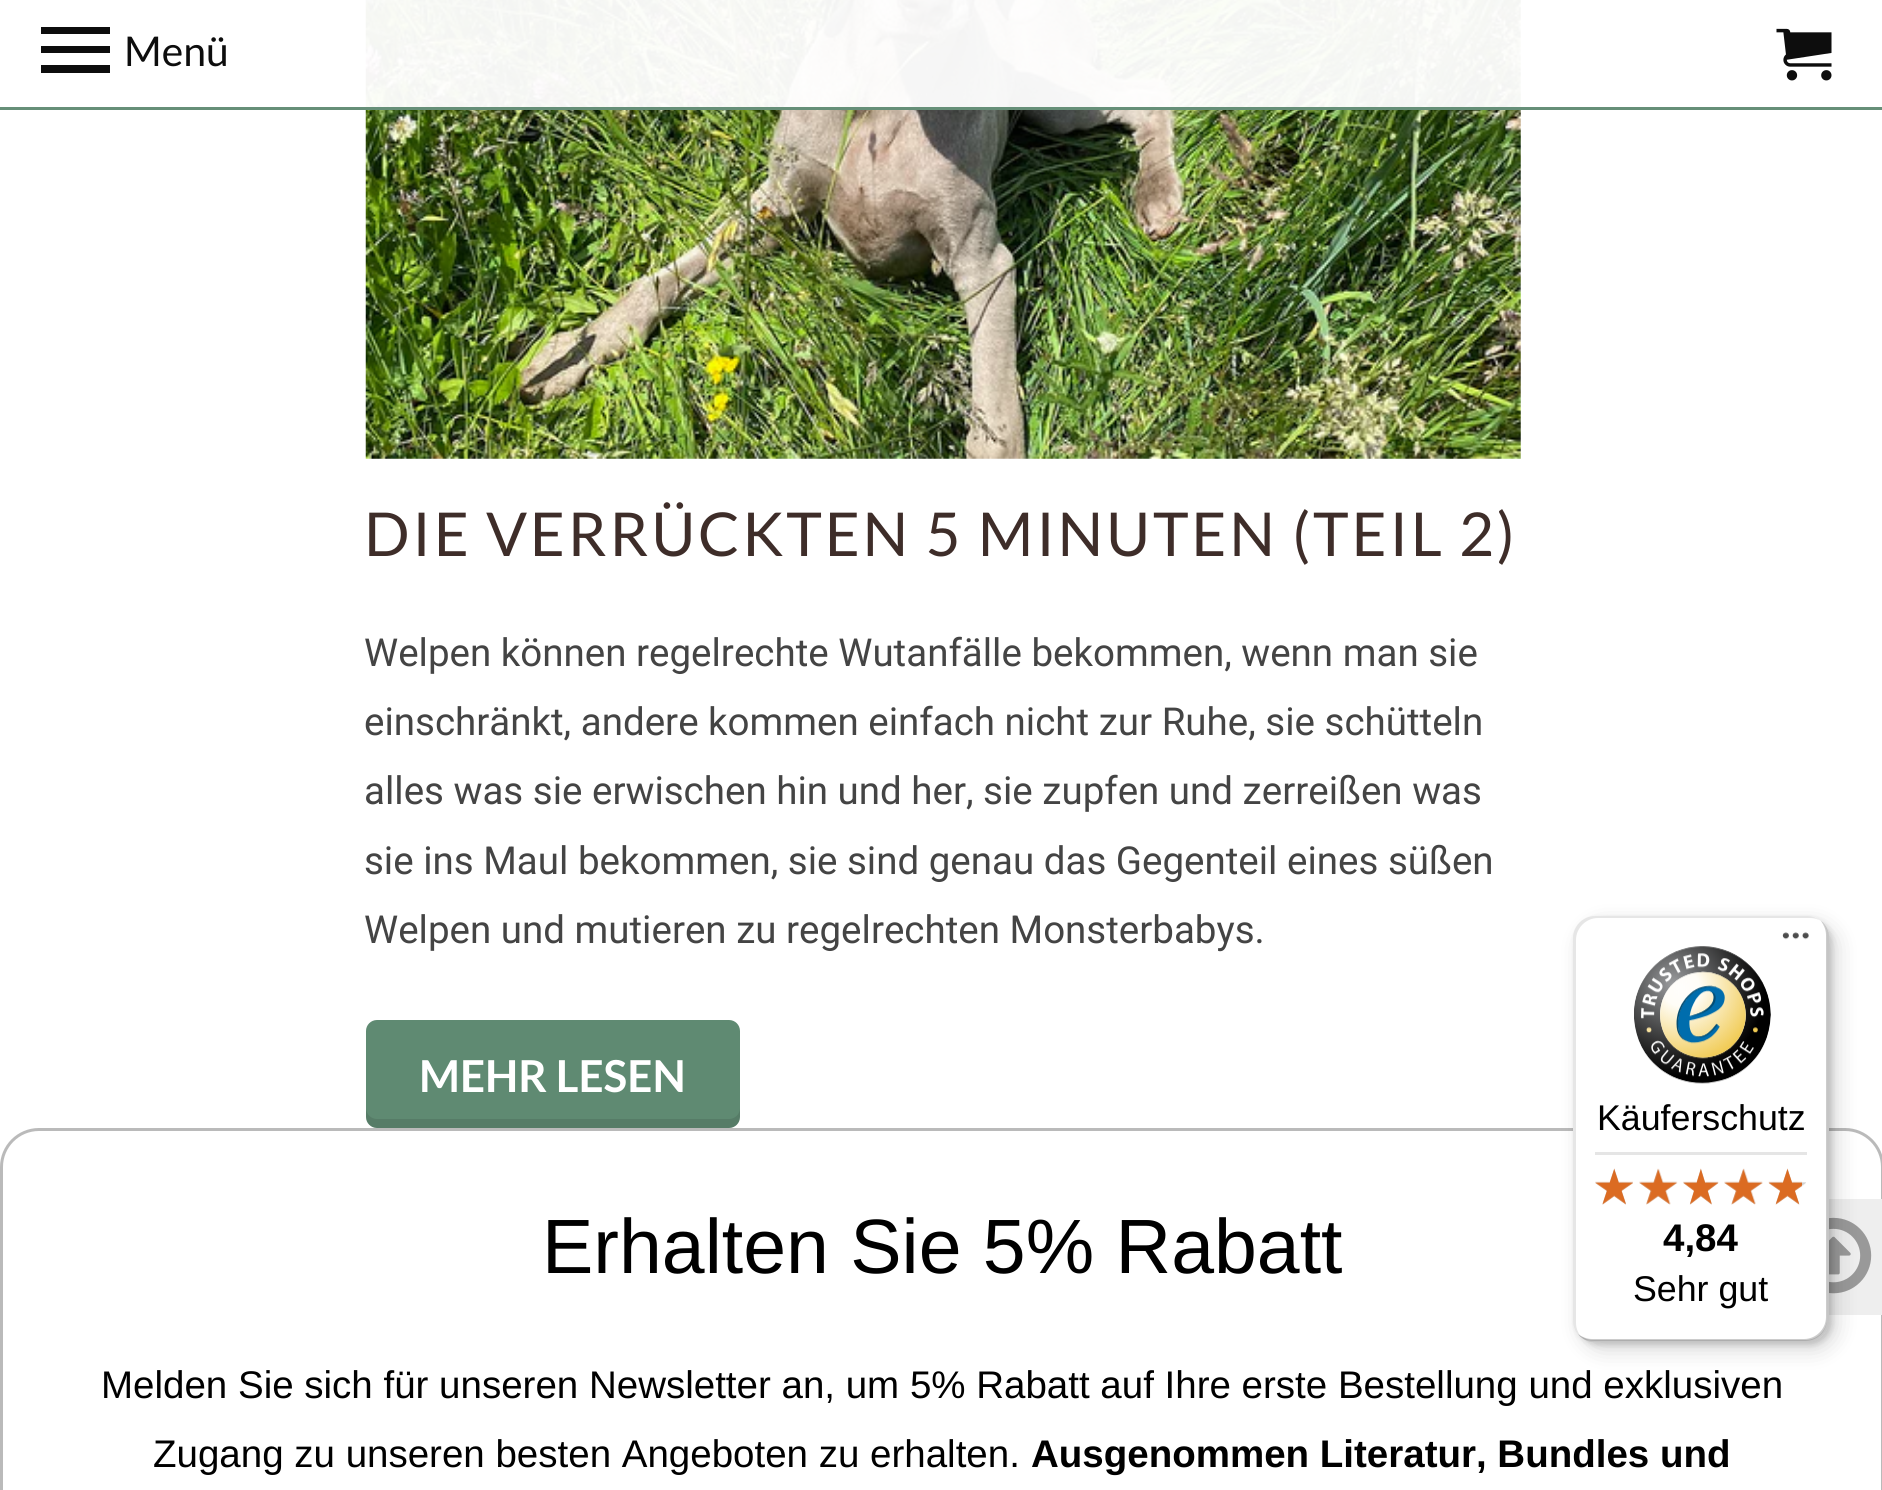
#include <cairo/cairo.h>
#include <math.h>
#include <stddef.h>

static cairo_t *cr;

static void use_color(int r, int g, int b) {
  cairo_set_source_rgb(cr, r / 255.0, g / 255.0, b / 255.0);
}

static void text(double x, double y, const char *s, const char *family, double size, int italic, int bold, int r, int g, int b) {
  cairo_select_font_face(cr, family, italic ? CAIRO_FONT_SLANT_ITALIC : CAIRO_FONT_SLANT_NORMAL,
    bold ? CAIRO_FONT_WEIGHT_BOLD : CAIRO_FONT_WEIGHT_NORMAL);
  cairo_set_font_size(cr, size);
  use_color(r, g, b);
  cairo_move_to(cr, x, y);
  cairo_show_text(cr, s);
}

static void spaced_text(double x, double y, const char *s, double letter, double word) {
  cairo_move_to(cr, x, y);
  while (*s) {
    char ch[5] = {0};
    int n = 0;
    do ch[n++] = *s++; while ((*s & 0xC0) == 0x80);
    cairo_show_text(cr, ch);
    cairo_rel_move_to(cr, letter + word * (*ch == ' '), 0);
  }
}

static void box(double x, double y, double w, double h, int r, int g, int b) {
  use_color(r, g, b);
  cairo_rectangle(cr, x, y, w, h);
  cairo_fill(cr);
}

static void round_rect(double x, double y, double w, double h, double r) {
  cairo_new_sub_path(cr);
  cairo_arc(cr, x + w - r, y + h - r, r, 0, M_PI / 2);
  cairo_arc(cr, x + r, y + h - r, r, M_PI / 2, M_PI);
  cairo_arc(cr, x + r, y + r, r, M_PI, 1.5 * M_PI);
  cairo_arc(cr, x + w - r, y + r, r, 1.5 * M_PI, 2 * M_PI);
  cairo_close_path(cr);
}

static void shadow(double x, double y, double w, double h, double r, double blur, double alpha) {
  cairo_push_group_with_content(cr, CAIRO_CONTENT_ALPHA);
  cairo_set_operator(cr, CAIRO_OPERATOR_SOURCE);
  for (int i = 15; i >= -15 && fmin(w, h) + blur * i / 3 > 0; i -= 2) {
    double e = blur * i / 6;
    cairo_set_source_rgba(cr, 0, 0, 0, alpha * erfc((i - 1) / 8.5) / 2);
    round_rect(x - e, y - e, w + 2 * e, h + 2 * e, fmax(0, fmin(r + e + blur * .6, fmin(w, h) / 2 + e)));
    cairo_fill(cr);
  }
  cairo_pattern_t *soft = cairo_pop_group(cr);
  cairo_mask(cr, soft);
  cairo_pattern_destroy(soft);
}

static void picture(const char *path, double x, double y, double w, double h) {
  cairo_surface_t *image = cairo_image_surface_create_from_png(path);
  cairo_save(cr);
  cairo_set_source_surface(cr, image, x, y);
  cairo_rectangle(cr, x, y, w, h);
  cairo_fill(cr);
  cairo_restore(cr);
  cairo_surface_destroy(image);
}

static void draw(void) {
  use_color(255, 255, 255);
  cairo_paint(cr);
  picture("img_02.png", 365, 0, 1156, 459);
  cairo_set_source_rgba(cr, 1, 1, 1, 0.95);
  cairo_rectangle(cr, 365, 0, 1156, 110);
  cairo_fill(cr);
  cairo_set_source_rgba(cr, 0.373, 0.541, 0.447, 0.95);
  cairo_rectangle(cr, 0, 107, 1882, 3);
  cairo_fill(cr);
  use_color(13, 13, 13);
  cairo_new_path(cr);
  cairo_move_to(cr, 41, 73);
  cairo_line_to(cr, 110, 73);
  cairo_line_to(cr, 110, 65);
  cairo_line_to(cr, 41, 65);
  cairo_close_path(cr);
  cairo_move_to(cr, 41, 53);
  cairo_line_to(cr, 110, 53);
  cairo_line_to(cr, 110, 46);
  cairo_line_to(cr, 41, 46);
  cairo_close_path(cr);
  cairo_move_to(cr, 41, 27);
  cairo_line_to(cr, 41, 34);
  cairo_line_to(cr, 110, 34);
  cairo_line_to(cr, 110, 27);
  cairo_close_path(cr);
  cairo_fill(cr);
  picture("img_01.png", 1776, 28, 56, 53);
  use_color(95, 138, 114);
  round_rect(366, 1020, 374, 108, 11);
  cairo_fill(cr);
  cairo_set_source_rgba(cr, 0, 0, 0, 0.1);
  cairo_new_path(cr);
  cairo_move_to(cr, 366, 1108);
  cairo_line_to(cr, 366, 1117);
  cairo_curve_to(cr, 366, 1123, 371, 1128, 377, 1128);
  cairo_line_to(cr, 729, 1128);
  cairo_curve_to(cr, 735, 1128, 740, 1123, 740, 1117);
  cairo_line_to(cr, 740, 1108);
  cairo_curve_to(cr, 740, 1114, 735, 1119, 729, 1119);
  cairo_line_to(cr, 377, 1119);
  cairo_curve_to(cr, 371, 1119, 366, 1114, 366, 1108);
  cairo_close_path(cr);
  cairo_fill(cr);
  round_rect(1.5, 1129.5, 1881, 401, 37.5);
  use_color(186, 186, 186);
  cairo_set_line_width(cr, 3);
  cairo_stroke(cr);
  box(1829, 1199, 53, 116, 238, 238, 238);
  picture("img_15.png", 1829, 1217, 43, 77);
  use_color(0, 0, 0);
  shadow(1581, 924, 256, 426, 22, 11, 0.15);
  shadow(1576, 919, 256, 426, 22, 3, 0.15);
  use_color(255, 255, 255);
  round_rect(1573, 916, 256, 426, 22);
  cairo_fill(cr);
  cairo_set_source_rgba(cr, 0, 0, 0, 0.1);
  cairo_new_path(cr);
  cairo_move_to(cr, 1598, 918);
  cairo_line_to(cr, 1810, 918);
  cairo_curve_to(cr, 1814, 918, 1818, 919, 1821, 921);
  cairo_curve_to(cr, 1817, 918, 1812, 916, 1807, 916);
  cairo_line_to(cr, 1595, 916);
  cairo_curve_to(cr, 1583, 916, 1573, 926, 1573, 938);
  cairo_line_to(cr, 1573, 1320);
  cairo_curve_to(cr, 1573, 1327, 1576, 1333, 1581, 1337);
  cairo_curve_to(cr, 1578, 1333, 1576, 1328, 1576, 1323);
  cairo_line_to(cr, 1576, 940);
  cairo_curve_to(cr, 1576, 928, 1586, 918, 1598, 918);
  cairo_close_path(cr);
  cairo_fill(cr);
  cairo_set_source_rgba(cr, 0, 0, 0, 0.2);
  cairo_new_path(cr);
  cairo_move_to(cr, 1578, 1334);
  cairo_curve_to(cr, 1582, 1339, 1588, 1342, 1595, 1342);
  cairo_line_to(cr, 1807, 1342);
  cairo_curve_to(cr, 1819, 1342, 1829, 1332, 1829, 1320);
  cairo_line_to(cr, 1829, 938);
  cairo_curve_to(cr, 1829, 931, 1826, 925, 1821, 921);
  cairo_curve_to(cr, 1824, 925, 1826, 930, 1826, 935);
  cairo_line_to(cr, 1826, 1317);
  cairo_curve_to(cr, 1826, 1329, 1816, 1339, 1804, 1339);
  cairo_line_to(cr, 1592, 1339);
  cairo_curve_to(cr, 1587, 1339, 1582, 1337, 1578, 1334);
  cairo_close_path(cr);
  cairo_fill(cr);
  cairo_set_source_rgba(cr, 0.196, 0.196, 0.196, 0.2);
  cairo_new_path(cr);
  cairo_move_to(cr, 1579, 1335);
  cairo_curve_to(cr, 1583, 1340, 1589, 1342, 1595, 1342);
  cairo_line_to(cr, 1807, 1342);
  cairo_curve_to(cr, 1819, 1342, 1829, 1332, 1829, 1320);
  cairo_line_to(cr, 1829, 938);
  cairo_curve_to(cr, 1829, 931, 1826, 925, 1821, 921);
  cairo_curve_to(cr, 1825, 925, 1827, 930, 1827, 936);
  cairo_line_to(cr, 1827, 1318);
  cairo_curve_to(cr, 1827, 1331, 1817, 1340, 1805, 1340);
  cairo_line_to(cr, 1593, 1340);
  cairo_curve_to(cr, 1588, 1340, 1583, 1338, 1579, 1335);
  cairo_close_path(cr);
  cairo_fill(cr);
  cairo_set_source_rgba(cr, 1, 1, 1, 0.3);
  cairo_new_path(cr);
  cairo_move_to(cr, 1581, 1337);
  cairo_curve_to(cr, 1585, 1340, 1590, 1342, 1595, 1342);
  cairo_line_to(cr, 1807, 1342);
  cairo_curve_to(cr, 1819, 1342, 1829, 1332, 1829, 1320);
  cairo_line_to(cr, 1829, 938);
  cairo_curve_to(cr, 1829, 932, 1827, 926, 1822, 922);
  cairo_curve_to(cr, 1825, 926, 1827, 931, 1827, 936);
  cairo_line_to(cr, 1827, 1319);
  cairo_curve_to(cr, 1827, 1331, 1818, 1341, 1805, 1341);
  cairo_line_to(cr, 1594, 1341);
  cairo_curve_to(cr, 1589, 1341, 1585, 1340, 1581, 1337);
  cairo_close_path(cr);
  cairo_fill(cr);
  picture("img_03.png", 1782, 932, 27, 8);
  picture("img_04.png", 1634, 946, 137, 138);
  box(1595, 1152, 212, 3, 229, 229, 229);
  picture("img_10.png", 1595, 1169, 38, 36);
  picture("img_05.png", 1595, 1168, 38, 37);
  picture("img_11.png", 1639, 1169, 38, 36);
  picture("img_06.png", 1639, 1168, 39, 37);
  picture("img_12.png", 1683, 1169, 36, 36);
  picture("img_07.png", 1683, 1168, 36, 37);
  picture("img_13.png", 1724, 1169, 39, 36);
  picture("img_08.png", 1724, 1168, 39, 37);
  picture("img_14.png", 1769, 1169, 37, 36);
  picture("img_09.png", 1768, 1168, 34, 37);
  text(124, 66, "Menü", "Lato", 41, 0, 0, 13, 13, 13);
  cairo_set_font_size(cr, 60.5);
  use_color(62, 45, 41);
  spaced_text(364, 556, "DIE VERRÜCKTEN 5 MINUTEN (TEIL 2)", 2.75, 0);
  text(364, 666, "Welpen können regelrechte Wutanfälle bekommen, wenn man sie", "Roboto", 38.5, 0, 0, 68, 68, 68);
  text(364, 735, "einschränkt, andere kommen einfach nicht zur Ruhe, sie schütteln", "Roboto", 38.5, 0, 0, 68, 68, 68);
  text(364, 804, "alles was sie erwischen hin und her, sie zupfen und zerreißen was", "Roboto", 38.5, 0, 0, 68, 68, 68);
  text(364, 874, "sie ins Maul bekommen, sie sind genau das Gegenteil eines süßen", "Roboto", 38.5, 0, 0, 68, 68, 68);
  text(364, 943, "Welpen und mutieren zu regelrechten Monsterbabys.", "Roboto", 38.5, 0, 0, 68, 68, 68);
  text(419, 1092, "MEHR LESEN", "Lato", 44, 0, 1, 255, 255, 255);
  text(542, 1273, "Erhalten Sie 5% Rabatt", "Liberation Sans", 77, 0, 0, 0, 0, 0);
  text(101, 1398, "Melden Sie sich für unseren Newsletter an, um 5% Rabatt auf Ihre erste Bestellung und exklusiven", "Liberation Sans", 38.5, 0, 0, 0, 0, 0);
  text(153, 1467, "Zugang zu unseren besten Angeboten zu erhalten.", "Liberation Sans", 38.5, 0, 0, 0, 0, 0);
  text(1031, 1467, "Ausgenommen Literatur, Bundles und", "Liberation Sans", 38.5, 0, 1, 0, 0, 0);
  text(1597, 1130, "Käuferschutz", "Liberation Sans", 35.75, 0, 0, 0, 0, 0);
  text(1663, 1251, "4,84", "Liberation Sans", 38.5, 0, 1, 0, 0, 0);
  text(1633, 1301, "Sehr gut", "Liberation Sans", 35.75, 0, 0, 0, 0, 0);
}

int main(void) {
  cairo_surface_t *surface = cairo_image_surface_create(CAIRO_FORMAT_RGB24, 1882, 1490);
  cr = cairo_create(surface);
  cairo_font_options_t *options = cairo_font_options_create();
  cairo_font_options_set_hint_metrics(options, CAIRO_HINT_METRICS_OFF);
  cairo_font_options_set_hint_style(options, CAIRO_HINT_STYLE_NONE);
  cairo_set_font_options(cr, options);
  cairo_set_miter_limit(cr, 4);
  draw();
  cairo_surface_write_to_png(surface, "out.png");
  cairo_font_options_destroy(options);
  cairo_destroy(cr);
  cairo_surface_destroy(surface);
  return 0;
}
